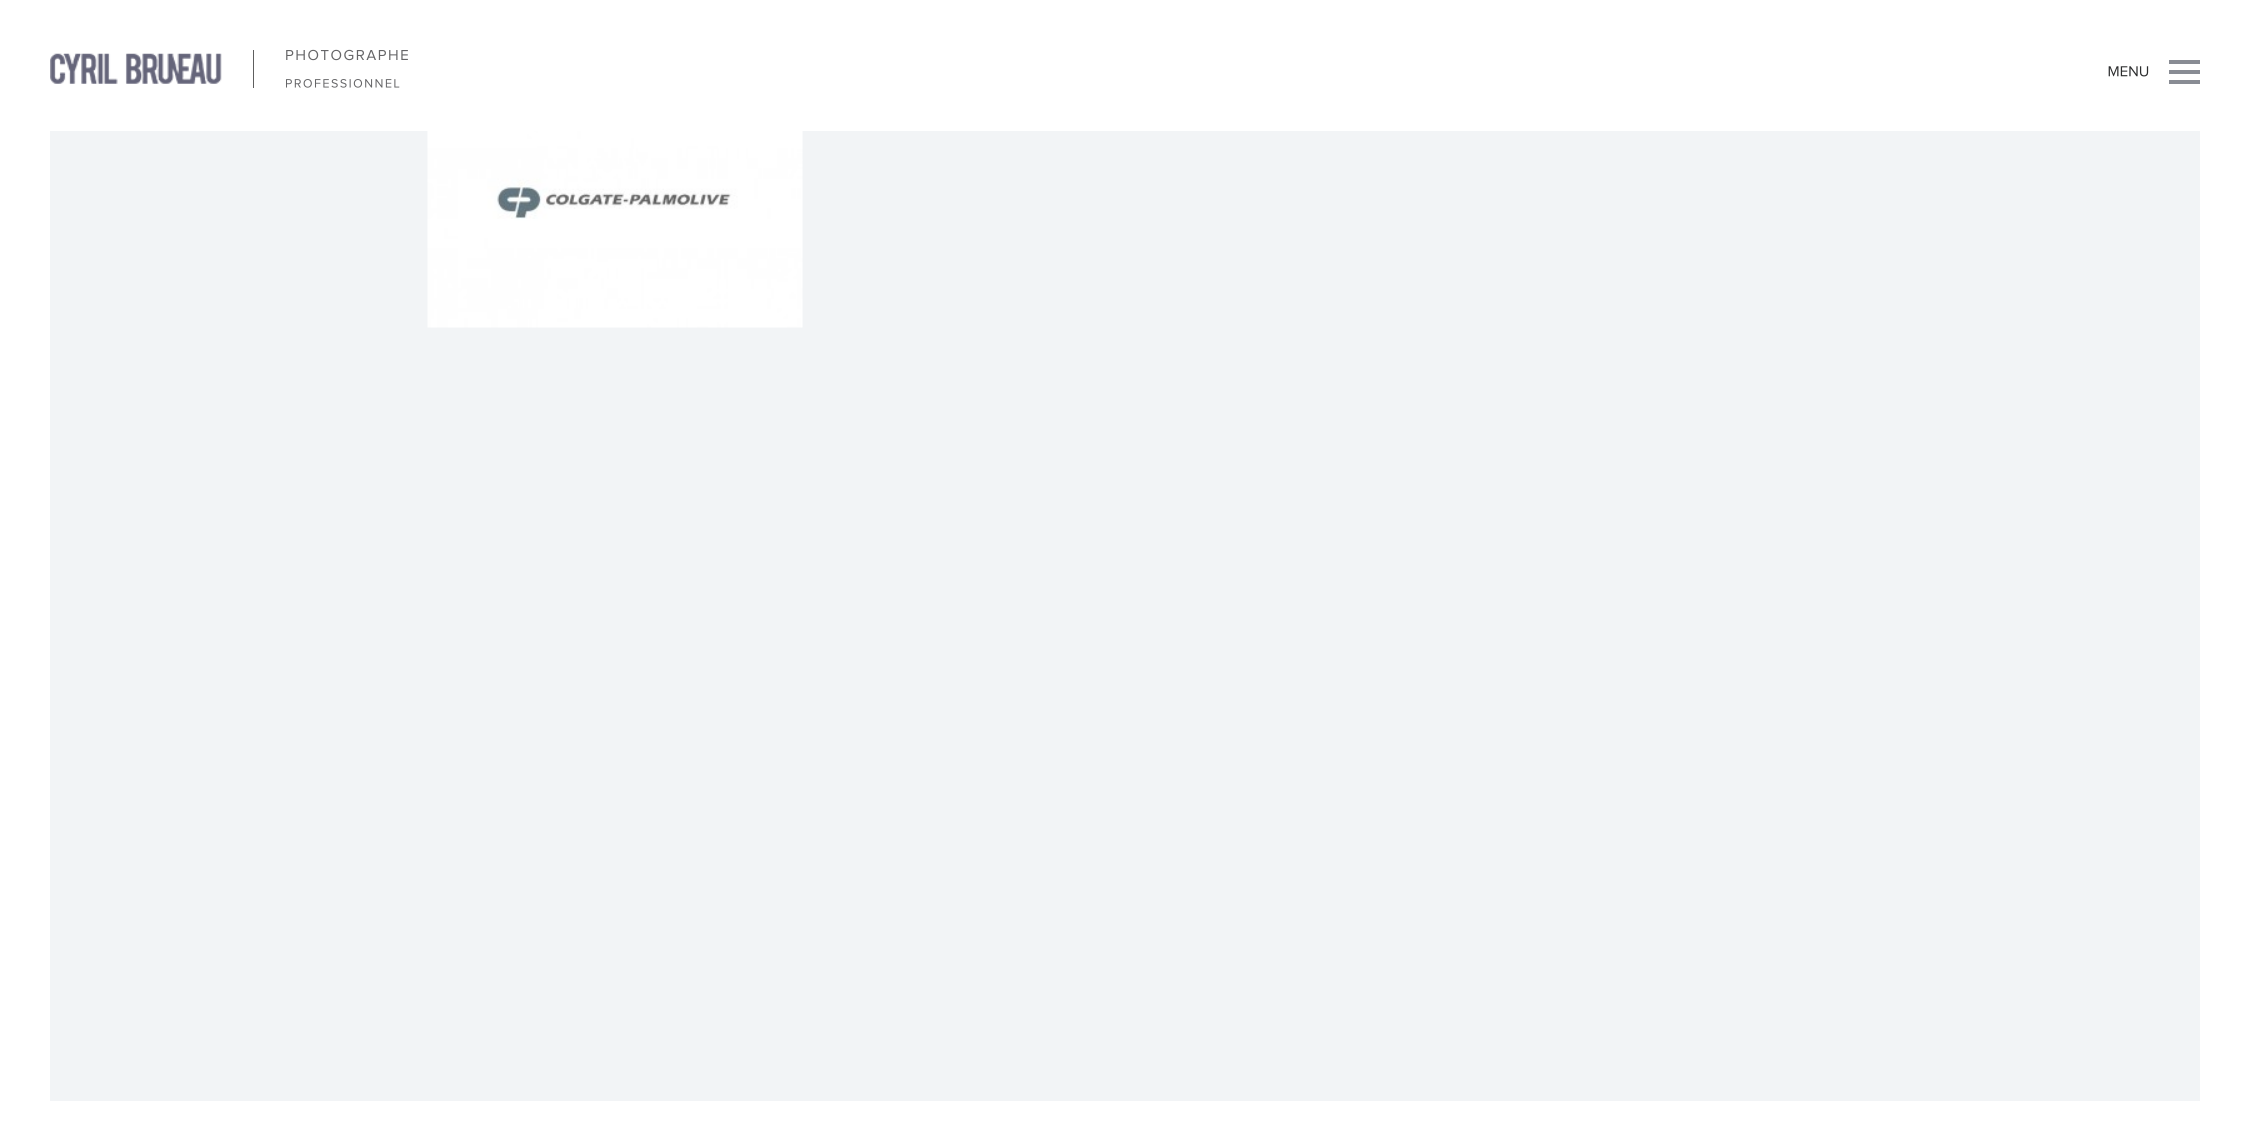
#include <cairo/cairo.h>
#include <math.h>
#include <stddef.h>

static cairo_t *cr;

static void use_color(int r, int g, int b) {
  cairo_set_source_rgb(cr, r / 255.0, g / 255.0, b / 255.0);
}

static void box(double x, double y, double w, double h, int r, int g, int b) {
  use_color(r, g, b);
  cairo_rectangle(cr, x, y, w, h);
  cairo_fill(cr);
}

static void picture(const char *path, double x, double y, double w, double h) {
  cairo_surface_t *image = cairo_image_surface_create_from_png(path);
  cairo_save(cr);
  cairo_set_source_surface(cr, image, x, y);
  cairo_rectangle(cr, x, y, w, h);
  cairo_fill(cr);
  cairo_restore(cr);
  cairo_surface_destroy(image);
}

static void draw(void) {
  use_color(242, 244, 246);
  cairo_paint(cr);
  box(0, 0, 50, 1138, 255, 255, 255);
  box(50, 0, 2150, 131, 255, 255, 255);
  picture("img_01.png", 50, 53, 172, 31);
  box(253, 50, 1, 38, 94, 94, 94);
  picture("img_02.png", 286, 49, 122, 12);
  picture("img_03.png", 286, 79, 114, 9);
  picture("img_04.png", 2108, 66, 41, 11);
  box(2169, 60, 31, 4, 137, 140, 148);
  box(2169, 70, 31, 4, 137, 140, 148);
  box(2169, 80, 31, 4, 137, 140, 148);
  box(2200, 0, 50, 1101, 255, 255, 255);
  picture("img_05.png", 427, 131, 376, 197);
  box(50, 1101, 2200, 37, 255, 255, 255);
}

int main(void) {
  cairo_surface_t *surface = cairo_image_surface_create(CAIRO_FORMAT_RGB24, 2250, 1138);
  cr = cairo_create(surface);
  cairo_font_options_t *options = cairo_font_options_create();
  cairo_font_options_set_hint_metrics(options, CAIRO_HINT_METRICS_OFF);
  cairo_font_options_set_hint_style(options, CAIRO_HINT_STYLE_NONE);
  cairo_set_font_options(cr, options);
  cairo_set_miter_limit(cr, 4);
  draw();
  cairo_surface_write_to_png(surface, "out.png");
  cairo_font_options_destroy(options);
  cairo_destroy(cr);
  cairo_surface_destroy(surface);
  return 0;
}
